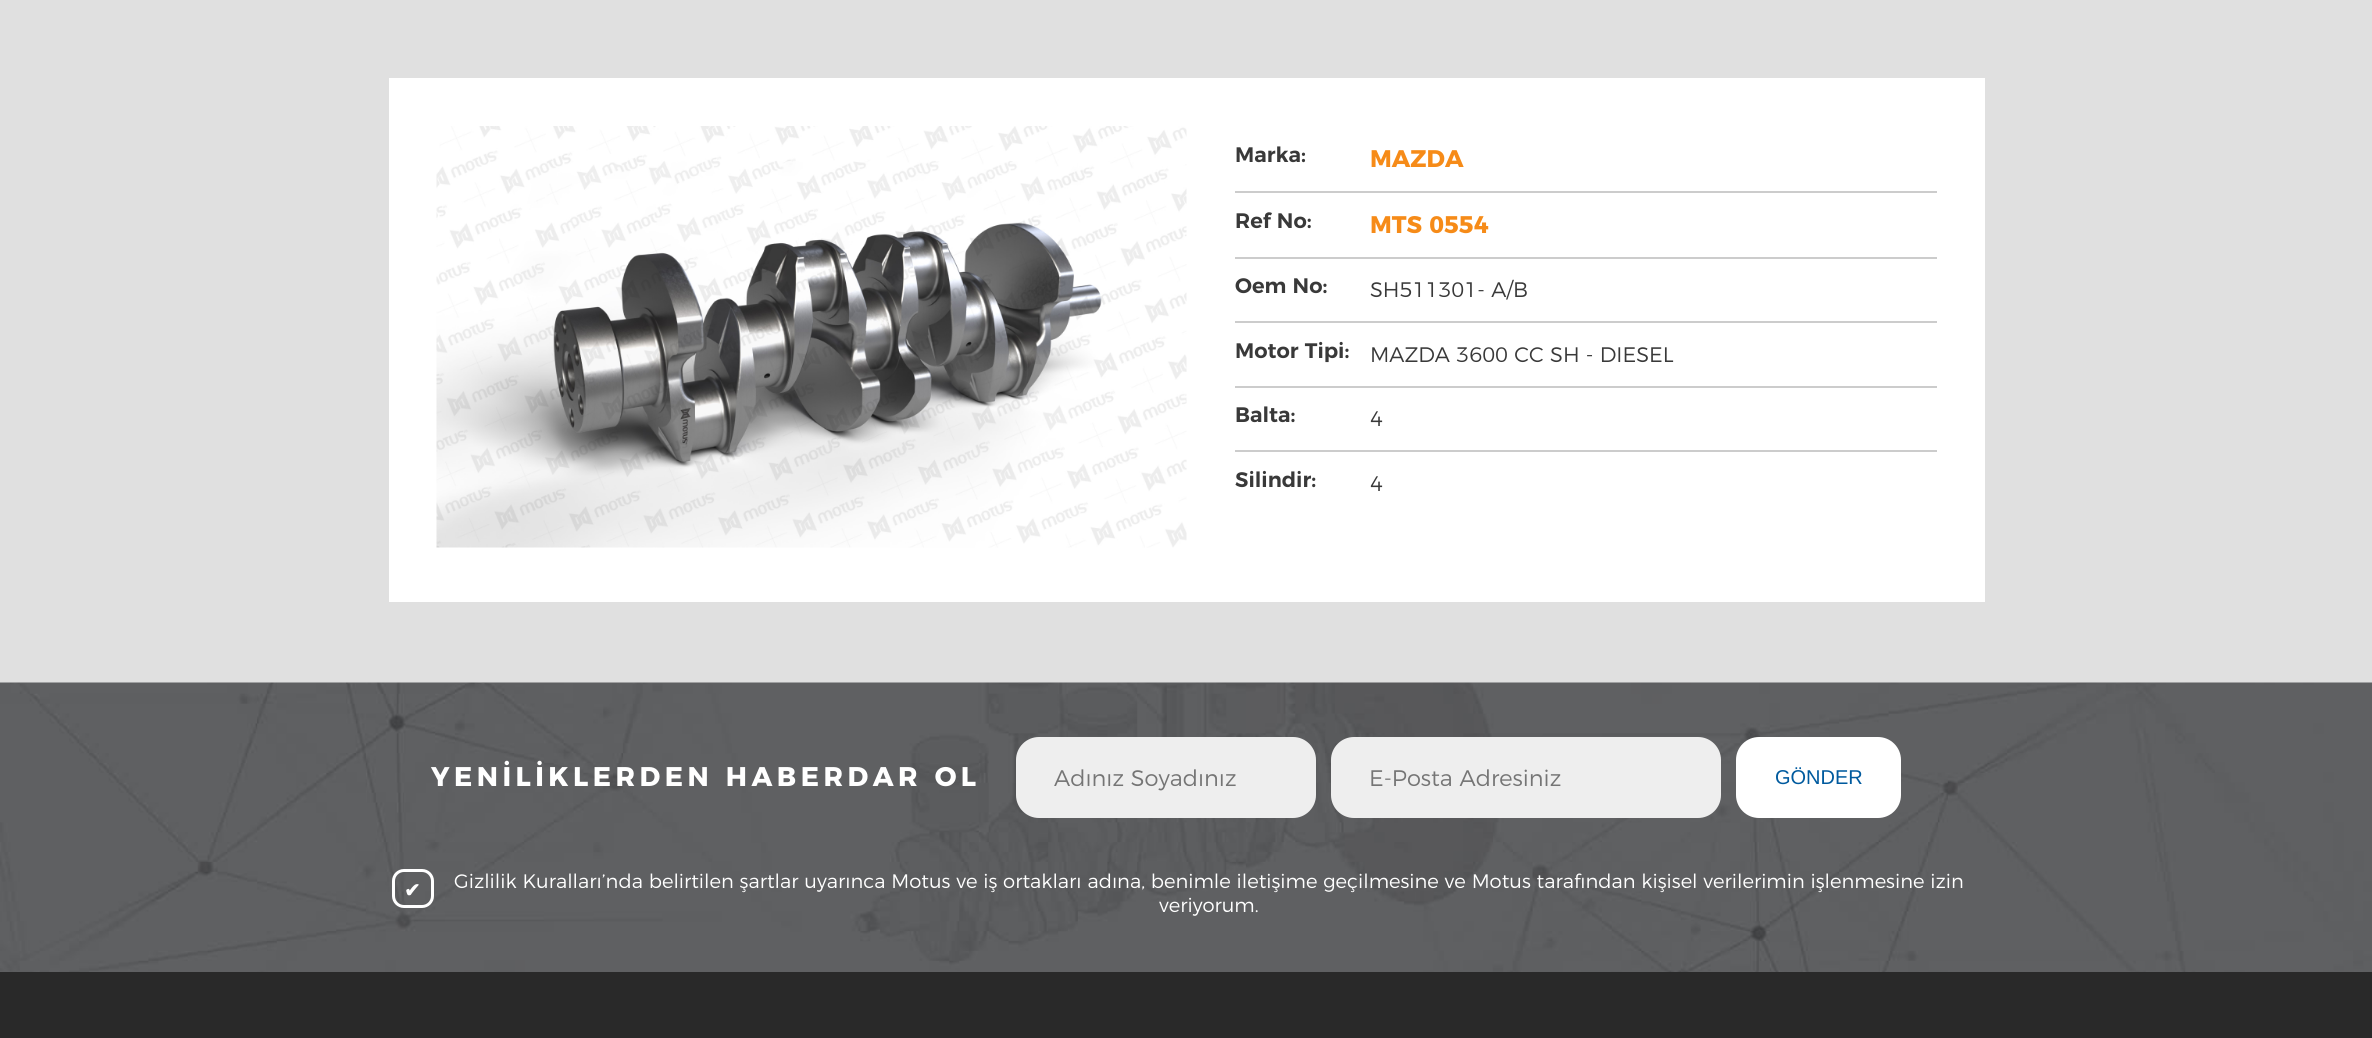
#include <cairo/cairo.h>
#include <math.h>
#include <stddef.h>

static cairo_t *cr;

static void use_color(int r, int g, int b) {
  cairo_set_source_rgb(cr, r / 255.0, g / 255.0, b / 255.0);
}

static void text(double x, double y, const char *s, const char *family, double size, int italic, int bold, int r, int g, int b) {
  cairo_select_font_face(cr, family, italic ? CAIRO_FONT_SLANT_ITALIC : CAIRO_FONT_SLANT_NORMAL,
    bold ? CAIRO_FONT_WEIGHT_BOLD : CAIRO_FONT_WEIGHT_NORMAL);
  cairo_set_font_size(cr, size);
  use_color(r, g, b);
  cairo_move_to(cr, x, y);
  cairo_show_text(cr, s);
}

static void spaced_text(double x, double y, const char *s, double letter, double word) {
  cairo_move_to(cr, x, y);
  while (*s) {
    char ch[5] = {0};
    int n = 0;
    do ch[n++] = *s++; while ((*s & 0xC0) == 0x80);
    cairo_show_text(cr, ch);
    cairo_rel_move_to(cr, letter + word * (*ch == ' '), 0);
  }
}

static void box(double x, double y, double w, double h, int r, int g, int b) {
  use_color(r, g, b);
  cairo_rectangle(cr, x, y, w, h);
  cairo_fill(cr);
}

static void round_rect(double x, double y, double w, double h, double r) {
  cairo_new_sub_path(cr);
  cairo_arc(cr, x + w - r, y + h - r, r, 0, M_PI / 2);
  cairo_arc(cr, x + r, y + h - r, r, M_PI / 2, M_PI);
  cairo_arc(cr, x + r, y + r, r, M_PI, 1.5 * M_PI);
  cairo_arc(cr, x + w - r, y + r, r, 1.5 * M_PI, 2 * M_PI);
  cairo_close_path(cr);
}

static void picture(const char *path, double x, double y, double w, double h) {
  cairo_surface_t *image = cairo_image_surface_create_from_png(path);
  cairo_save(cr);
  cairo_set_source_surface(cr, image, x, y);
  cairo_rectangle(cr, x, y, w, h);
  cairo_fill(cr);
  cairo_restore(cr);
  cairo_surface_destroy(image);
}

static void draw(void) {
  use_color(224, 224, 224);
  cairo_paint(cr);
  box(389, 78, 1596, 524, 255, 255, 255);
  picture("img_01.png", 436, 126, 751, 422);
  box(1235, 191, 702, 2, 204, 204, 204);
  box(1235, 257, 702, 2, 204, 204, 204);
  box(1235, 321, 702, 2, 204, 204, 204);
  box(1235, 386, 702, 2, 204, 204, 204);
  box(1235, 450, 702, 2, 204, 204, 204);
  picture("img_02.png", 0, 682, 2372, 290);
  use_color(238, 238, 238);
  round_rect(1017, 738, 298, 79, 22);
  cairo_fill_preserve(cr);
  cairo_stroke(cr);
  round_rect(1332, 738, 388, 79, 22);
  cairo_fill_preserve(cr);
  cairo_stroke(cr);
  use_color(255, 255, 255);
  round_rect(1736, 737, 165, 81, 23);
  cairo_fill(cr);
  round_rect(393.5, 870.5, 39, 36, 10.5);
  cairo_set_line_width(cr, 3);
  cairo_stroke(cr);
  box(0, 972, 2372, 66, 41, 41, 41);
  text(1235, 162, "Marka:", "Montserrat SemiBold", 21, 0, 0, 57, 57, 57);
  text(1370, 167, "MAZDA", "Montserrat", 24, 0, 1, 246, 139, 24);
  text(1235, 228, "Ref No:", "Montserrat SemiBold", 21, 0, 0, 57, 57, 57);
  text(1370, 233, "MTS 0554", "Montserrat", 24, 0, 1, 246, 139, 24);
  text(1235, 293, "Oem No:", "Montserrat SemiBold", 21, 0, 0, 57, 57, 57);
  text(1370, 297, "SH511301- A/B", "Montserrat Light", 21, 0, 0, 57, 57, 57);
  text(1235, 358, "Motor Tipi:", "Montserrat SemiBold", 21, 0, 0, 57, 57, 57);
  text(1370, 362, "MAZDA 3600 CC SH - DIESEL", "Montserrat Light", 21, 0, 0, 57, 57, 57);
  text(1235, 422, "Balta:", "Montserrat SemiBold", 21, 0, 0, 57, 57, 57);
  text(1370, 426, "4", "Montserrat Light", 21, 0, 0, 57, 57, 57);
  text(1235, 487, "Silindir:", "Montserrat SemiBold", 21, 0, 0, 57, 57, 57);
  text(1370, 491, "4", "Montserrat Light", 21, 0, 0, 57, 57, 57);
  cairo_select_font_face(cr, "Montserrat", CAIRO_FONT_SLANT_NORMAL, CAIRO_FONT_WEIGHT_BOLD);
  cairo_set_font_size(cr, 27);
  use_color(255, 255, 255);
  spaced_text(431, 786, "YENİLİKLERDEN HABERDAR OL", 4.5, 0);
  text(1054, 786, "Adınız Soyadınız", "Montserrat Light", 22.5, 0, 0, 117, 117, 117);
  text(1369, 786, "E-Posta Adresiniz", "Montserrat Light", 22.5, 0, 0, 117, 117, 117);
  text(1775, 784, "GÖNDER", "Liberation Sans", 20, 0, 0, 0, 90, 158);
  text(404, 897, "✔", "DejaVu Sans", 19.5, 0, 1, 255, 255, 255);
  text(454, 888, "Gizlilik Kuralları’nda belirtilen şartlar uyarınca Motus ve iş ortakları adına, benimle iletişime geçilmesine ve Motus tarafından kişisel verilerimin işlenmesine izin", "Montserrat Light", 19.5, 0, 0, 255, 255, 255);
  text(1159, 912, "veriyorum.", "Montserrat Light", 19.5, 0, 0, 255, 255, 255);
}

int main(void) {
  cairo_surface_t *surface = cairo_image_surface_create(CAIRO_FORMAT_RGB24, 2372, 1038);
  cr = cairo_create(surface);
  cairo_font_options_t *options = cairo_font_options_create();
  cairo_font_options_set_hint_metrics(options, CAIRO_HINT_METRICS_OFF);
  cairo_font_options_set_hint_style(options, CAIRO_HINT_STYLE_NONE);
  cairo_set_font_options(cr, options);
  cairo_set_miter_limit(cr, 4);
  draw();
  cairo_surface_write_to_png(surface, "out.png");
  cairo_font_options_destroy(options);
  cairo_destroy(cr);
  cairo_surface_destroy(surface);
  return 0;
}
